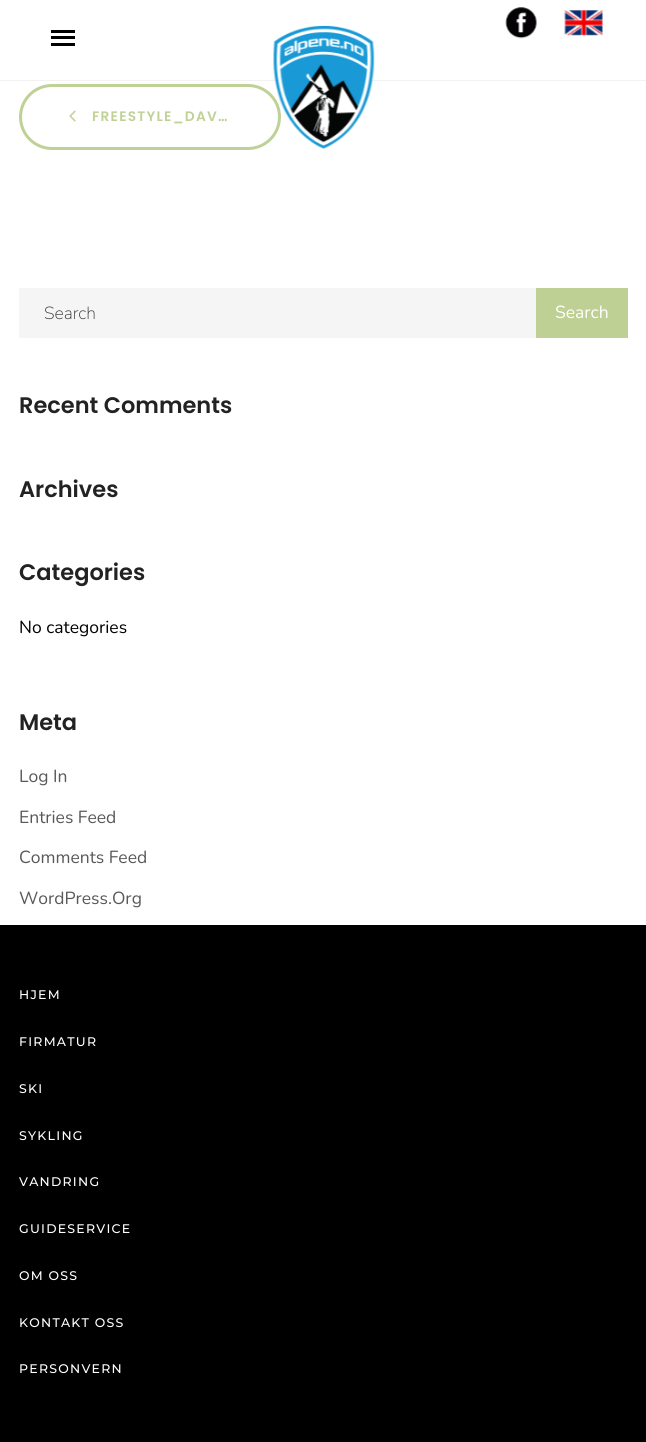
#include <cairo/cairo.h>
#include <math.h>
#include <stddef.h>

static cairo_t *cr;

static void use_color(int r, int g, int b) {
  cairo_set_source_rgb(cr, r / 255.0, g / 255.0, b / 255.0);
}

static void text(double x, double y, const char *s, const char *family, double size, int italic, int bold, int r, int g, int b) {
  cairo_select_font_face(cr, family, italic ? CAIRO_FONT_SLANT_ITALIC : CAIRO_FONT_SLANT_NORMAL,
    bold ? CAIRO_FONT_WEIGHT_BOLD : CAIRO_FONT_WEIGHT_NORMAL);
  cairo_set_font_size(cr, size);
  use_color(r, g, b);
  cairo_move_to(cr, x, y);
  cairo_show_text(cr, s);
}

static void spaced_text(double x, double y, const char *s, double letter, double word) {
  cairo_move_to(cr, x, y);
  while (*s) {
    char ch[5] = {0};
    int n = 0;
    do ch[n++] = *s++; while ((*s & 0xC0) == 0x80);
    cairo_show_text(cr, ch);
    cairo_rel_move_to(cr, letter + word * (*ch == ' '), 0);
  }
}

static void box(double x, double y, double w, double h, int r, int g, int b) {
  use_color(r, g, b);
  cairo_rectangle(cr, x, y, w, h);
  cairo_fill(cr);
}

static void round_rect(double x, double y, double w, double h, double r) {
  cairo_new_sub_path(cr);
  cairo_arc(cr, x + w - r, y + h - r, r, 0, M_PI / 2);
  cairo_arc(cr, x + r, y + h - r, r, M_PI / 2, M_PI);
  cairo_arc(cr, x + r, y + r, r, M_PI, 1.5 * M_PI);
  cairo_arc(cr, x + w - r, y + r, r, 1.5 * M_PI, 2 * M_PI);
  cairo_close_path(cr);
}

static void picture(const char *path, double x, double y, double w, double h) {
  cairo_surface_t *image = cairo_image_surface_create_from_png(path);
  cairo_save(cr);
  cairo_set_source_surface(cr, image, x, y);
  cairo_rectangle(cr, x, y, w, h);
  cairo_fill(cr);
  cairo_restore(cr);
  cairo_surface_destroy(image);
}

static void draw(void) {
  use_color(255, 255, 255);
  cairo_paint(cr);
  box(0, 80, 646, 1, 242, 242, 242);
  box(51, 30, 24, 3, 0, 0, 0);
  box(51, 36, 24, 3, 0, 0, 0);
  box(51, 43, 24, 3, 0, 0, 0);
  round_rect(20.5, 85.5, 259, 63, 31.5);
  use_color(191, 209, 150);
  cairo_set_line_width(cr, 3);
  cairo_stroke(cr);
  picture("img_01.png", 273, 25, 102, 124);
  picture("img_02.png", 505, 7, 32, 32);
  picture("img_03.png", 564, 10, 39, 26);
  picture("img_04.png", 69, 110, 7, 12);
  box(19, 288, 517, 50, 245, 245, 245);
  box(536, 288, 92, 50, 190, 208, 148);
  box(0, 925, 646, 517, 0, 0, 0);
  cairo_select_font_face(cr, "Poppins SemiBold", CAIRO_FONT_SLANT_NORMAL, CAIRO_FONT_WEIGHT_NORMAL);
  cairo_set_font_size(cr, 13.75);
  use_color(191, 209, 150);
  spaced_text(92, 121, "FREESTYLE_DAV…", 1.25, 0);
  text(44, 319, "Search", "Nunito ExtraLight", 17.5, 0, 0, 51, 51, 51);
  text(555, 318, "Search", "Nunito", 17.5, 0, 0, 255, 255, 255);
  text(19, 413, "Recent Comments", "Poppins SemiBold", 22.5, 0, 0, 34, 34, 34);
  text(19, 497, "Archives", "Poppins SemiBold", 22.5, 0, 0, 34, 34, 34);
  text(19, 580, "Categories", "Poppins SemiBold", 22.5, 0, 0, 34, 34, 34);
  text(19, 633, "No categories", "Nunito", 17.5, 0, 0, 0, 0, 0);
  text(19, 730, "Meta", "Poppins SemiBold", 22.5, 0, 0, 34, 34, 34);
  text(19, 782, "Log In", "Nunito", 17.5, 0, 0, 88, 88, 88);
  text(19, 823, "Entries Feed", "Nunito", 17.5, 0, 0, 88, 88, 88);
  text(19, 863, "Comments Feed", "Nunito", 17.5, 0, 0, 88, 88, 88);
  text(19, 904, "WordPress.Org", "Nunito", 17.5, 0, 0, 88, 88, 88);
  cairo_select_font_face(cr, "Montserrat Medium", CAIRO_FONT_SLANT_NORMAL, CAIRO_FONT_WEIGHT_NORMAL);
  cairo_set_font_size(cr, 12.5);
  use_color(255, 255, 255);
  spaced_text(19, 999, "HJEM", 1.25, 0);
  spaced_text(19, 1046, "FIRMATUR", 1.25, 0);
  spaced_text(19, 1093, "SKI", 1.25, 0);
  spaced_text(19, 1140, "SYKLING", 1.25, 0);
  spaced_text(19, 1186, "VANDRING", 1.25, 0);
  spaced_text(19, 1233, "GUIDESERVICE", 1.25, 0);
  spaced_text(19, 1280, "OM OSS", 1.25, 0);
  spaced_text(19, 1327, "KONTAKT OSS", 1.25, 0);
  spaced_text(19, 1373, "PERSONVERN", 1.25, 0);
}

int main(void) {
  cairo_surface_t *surface = cairo_image_surface_create(CAIRO_FORMAT_RGB24, 646, 1442);
  cr = cairo_create(surface);
  cairo_font_options_t *options = cairo_font_options_create();
  cairo_font_options_set_hint_metrics(options, CAIRO_HINT_METRICS_OFF);
  cairo_font_options_set_hint_style(options, CAIRO_HINT_STYLE_NONE);
  cairo_set_font_options(cr, options);
  cairo_set_miter_limit(cr, 4);
  draw();
  cairo_surface_write_to_png(surface, "out.png");
  cairo_font_options_destroy(options);
  cairo_destroy(cr);
  cairo_surface_destroy(surface);
  return 0;
}
